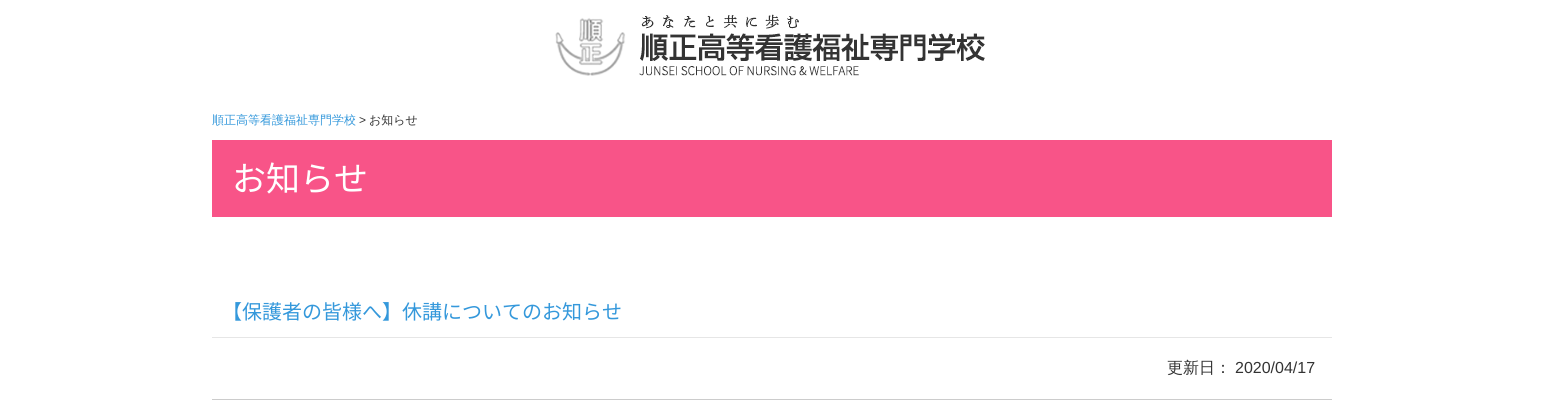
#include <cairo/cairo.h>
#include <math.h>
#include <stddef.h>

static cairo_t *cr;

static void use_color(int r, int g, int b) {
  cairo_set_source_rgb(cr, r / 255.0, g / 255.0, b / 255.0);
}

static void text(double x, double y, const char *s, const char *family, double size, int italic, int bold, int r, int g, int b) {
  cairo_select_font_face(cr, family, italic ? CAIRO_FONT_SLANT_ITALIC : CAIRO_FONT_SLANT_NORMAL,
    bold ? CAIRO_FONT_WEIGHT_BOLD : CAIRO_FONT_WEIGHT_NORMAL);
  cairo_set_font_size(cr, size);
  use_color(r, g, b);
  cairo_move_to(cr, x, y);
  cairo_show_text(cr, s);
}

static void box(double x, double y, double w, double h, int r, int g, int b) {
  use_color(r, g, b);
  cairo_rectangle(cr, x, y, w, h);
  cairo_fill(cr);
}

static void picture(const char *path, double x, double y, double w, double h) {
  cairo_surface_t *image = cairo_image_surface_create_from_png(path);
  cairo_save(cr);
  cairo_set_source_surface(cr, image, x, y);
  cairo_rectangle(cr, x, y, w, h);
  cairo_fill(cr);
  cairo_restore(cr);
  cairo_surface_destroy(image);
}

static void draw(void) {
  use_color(255, 255, 255);
  cairo_paint(cr);
  picture("img_01.png", 555, 14, 430, 62);
  box(212, 140, 1120, 77, 248, 84, 136);
  box(212, 399, 1120, 1, 204, 204, 204);
  box(212, 337, 1120, 1, 230, 230, 230);
  text(212, 124, "順正高等看護福祉専門学校", "WenQuanYi Zen Hei Medium", 12, 0, 0, 52, 152, 219);
  text(359, 124, ">", "Liberation Sans", 12, 0, 0, 51, 51, 51);
  text(369, 124, "お知らせ", "WenQuanYi Zen Hei Medium", 12, 0, 0, 51, 51, 51);
  text(232, 191, "お知らせ", "Noto Sans CJK JP", 34, 0, 0, 255, 255, 255);
  text(222, 319, "【保護者の皆様へ】休講についてのお知らせ", "Noto Sans CJK JP", 20, 0, 0, 52, 152, 219);
  text(1167, 373, "更新日：", "WenQuanYi Zen Hei Medium", 16, 0, 0, 51, 51, 51);
  text(1235, 373, "2020/04/17", "Liberation Sans", 16, 0, 0, 51, 51, 51);
}

int main(void) {
  cairo_surface_t *surface = cairo_image_surface_create(CAIRO_FORMAT_RGB24, 1543, 410);
  cr = cairo_create(surface);
  cairo_font_options_t *options = cairo_font_options_create();
  cairo_font_options_set_hint_metrics(options, CAIRO_HINT_METRICS_OFF);
  cairo_font_options_set_hint_style(options, CAIRO_HINT_STYLE_NONE);
  cairo_set_font_options(cr, options);
  cairo_set_miter_limit(cr, 4);
  draw();
  cairo_surface_write_to_png(surface, "out.png");
  cairo_font_options_destroy(options);
  cairo_destroy(cr);
  cairo_surface_destroy(surface);
  return 0;
}
